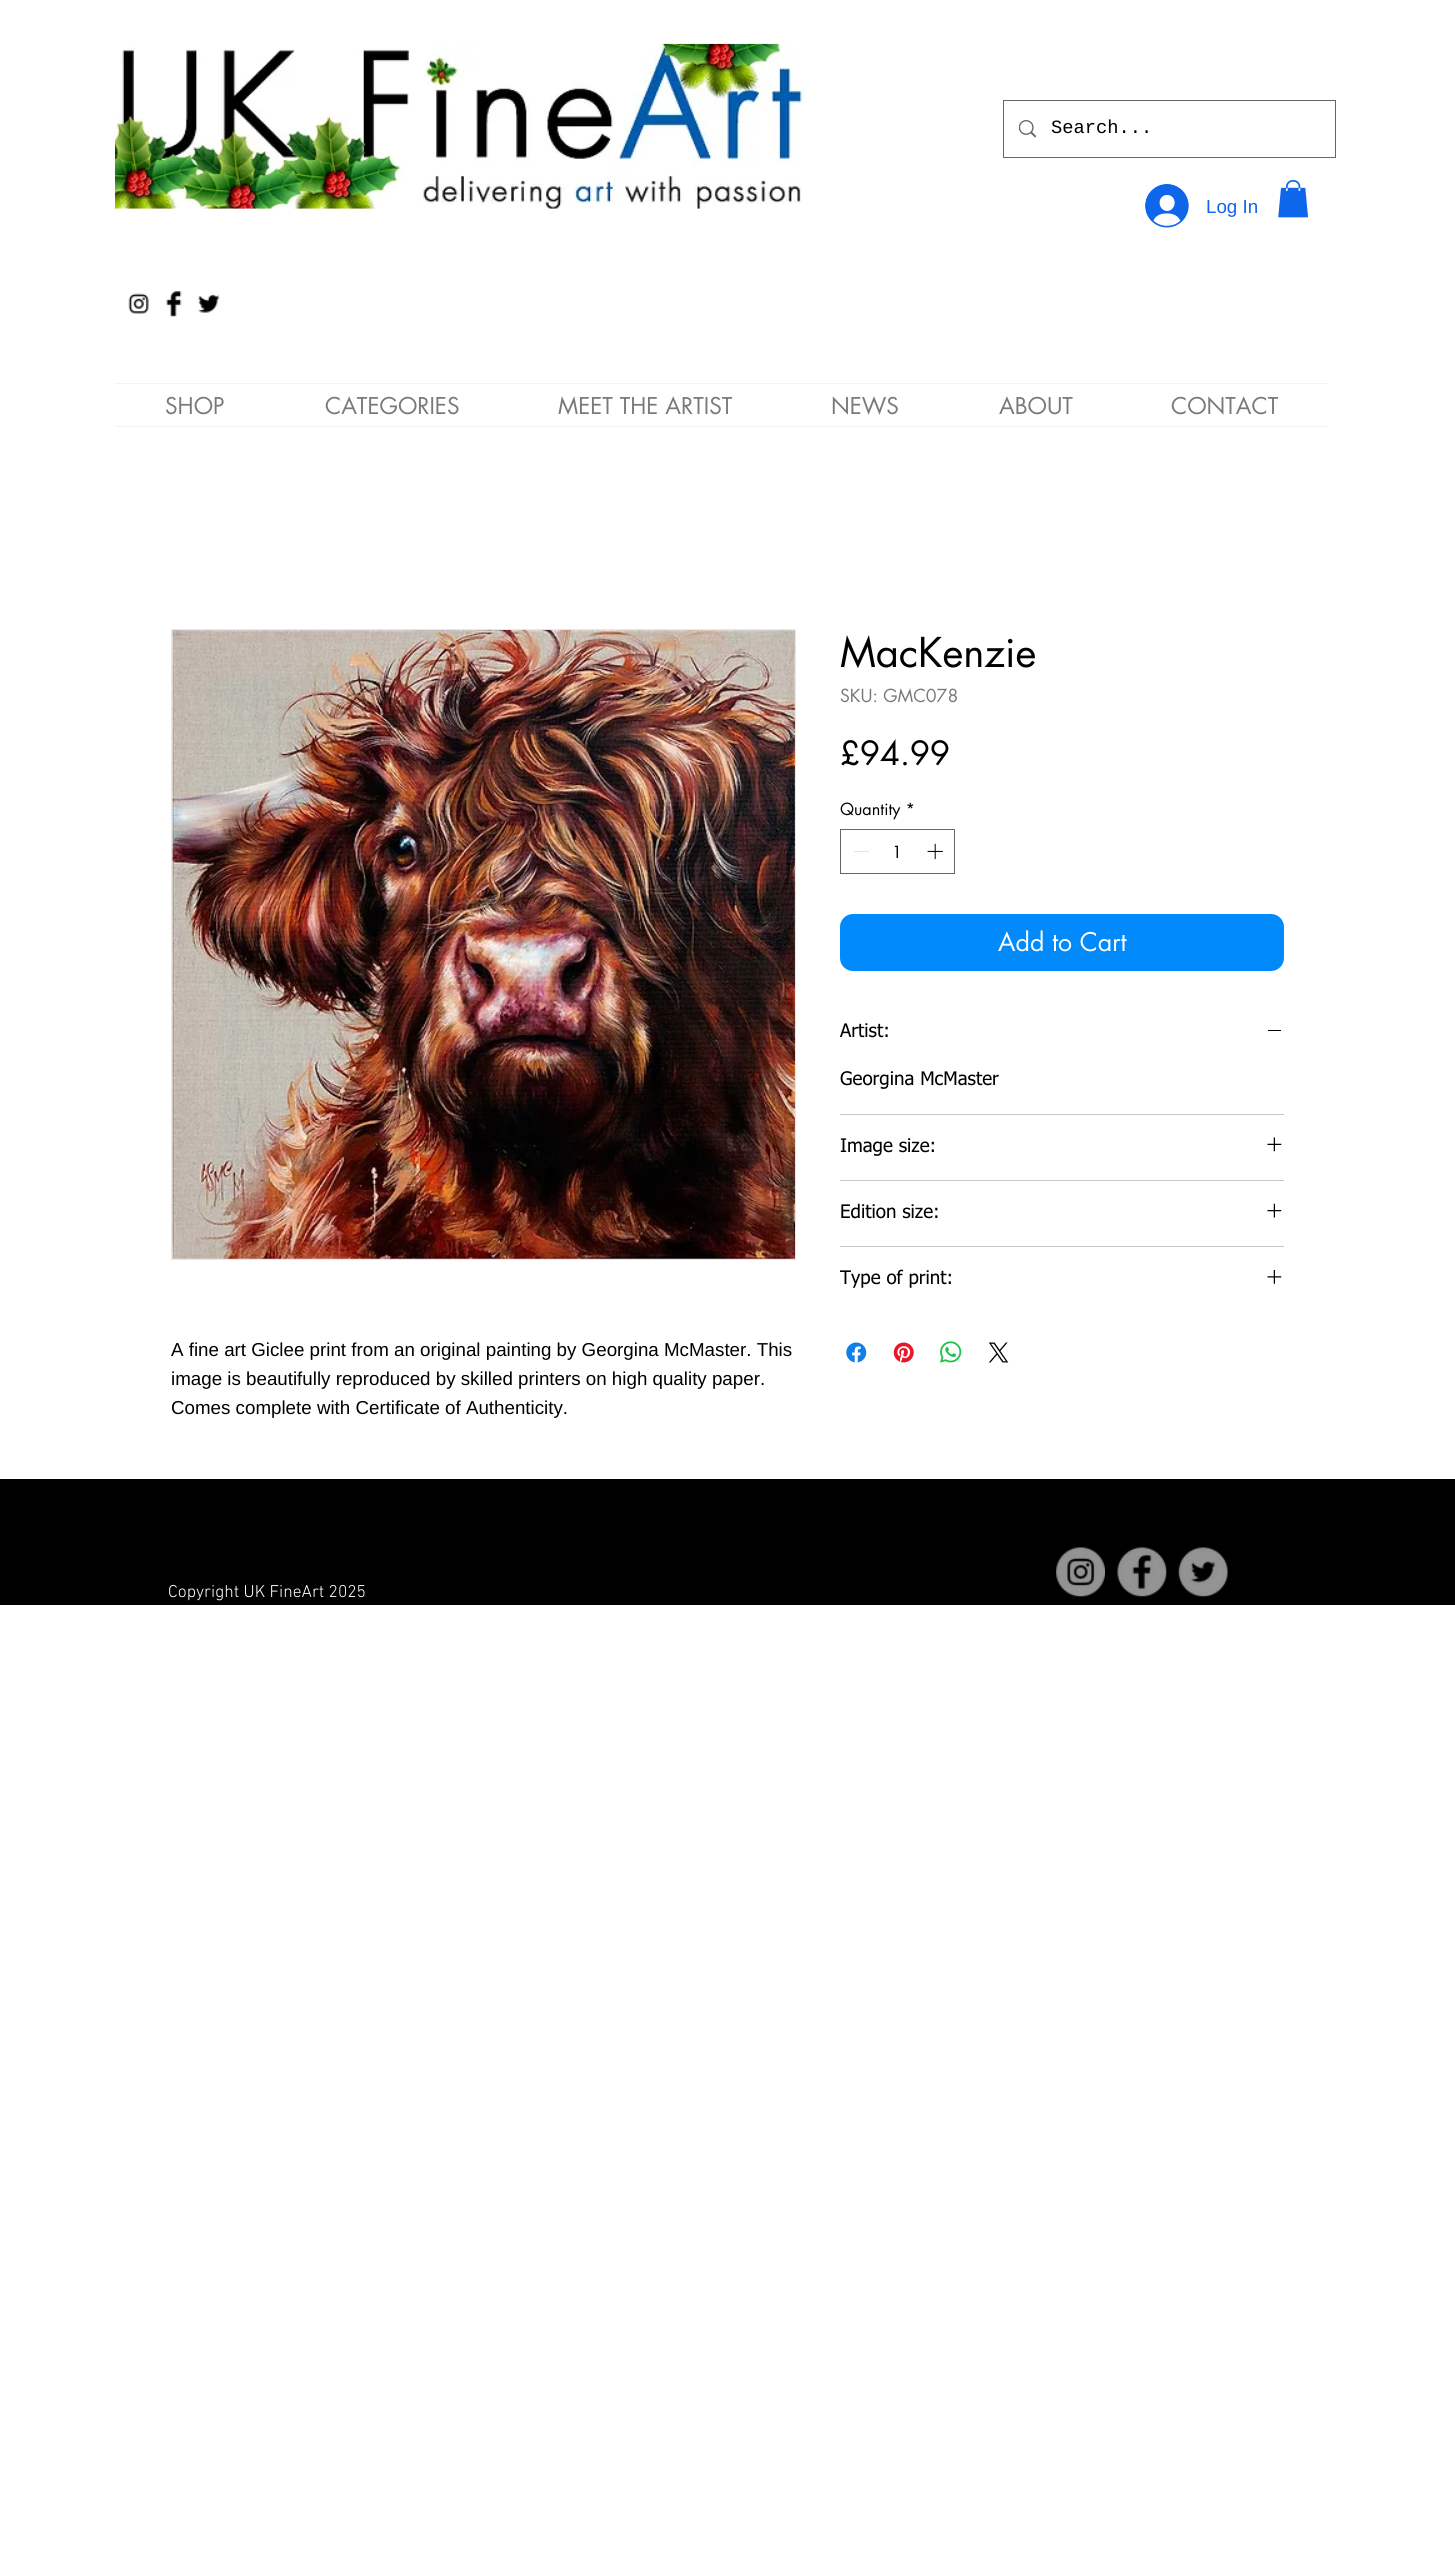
#include <cairo/cairo.h>
#include <math.h>
#include <stddef.h>

static cairo_t *cr;

static void use_color(int r, int g, int b) {
  cairo_set_source_rgb(cr, r / 255.0, g / 255.0, b / 255.0);
}

static void text(double x, double y, const char *s, const char *family, double size, int italic, int bold, int r, int g, int b) {
  cairo_select_font_face(cr, family, italic ? CAIRO_FONT_SLANT_ITALIC : CAIRO_FONT_SLANT_NORMAL,
    bold ? CAIRO_FONT_WEIGHT_BOLD : CAIRO_FONT_WEIGHT_NORMAL);
  cairo_set_font_size(cr, size);
  use_color(r, g, b);
  cairo_move_to(cr, x, y);
  cairo_show_text(cr, s);
}

static void box(double x, double y, double w, double h, int r, int g, int b) {
  use_color(r, g, b);
  cairo_rectangle(cr, x, y, w, h);
  cairo_fill(cr);
}

static void round_rect(double x, double y, double w, double h, double r) {
  cairo_new_sub_path(cr);
  cairo_arc(cr, x + w - r, y + h - r, r, 0, M_PI / 2);
  cairo_arc(cr, x + r, y + h - r, r, M_PI / 2, M_PI);
  cairo_arc(cr, x + r, y + r, r, M_PI, 1.5 * M_PI);
  cairo_arc(cr, x + w - r, y + r, r, 1.5 * M_PI, 2 * M_PI);
  cairo_close_path(cr);
}

static void picture(const char *path, double x, double y, double w, double h) {
  cairo_surface_t *image = cairo_image_surface_create_from_png(path);
  cairo_save(cr);
  cairo_set_source_surface(cr, image, x, y);
  cairo_rectangle(cr, x, y, w, h);
  cairo_fill(cr);
  cairo_restore(cr);
  cairo_surface_destroy(image);
}

static void draw(void) {
  use_color(255, 255, 255);
  cairo_paint(cr);
  picture("img_01.png", 115, 43, 691, 166);
  cairo_rectangle(cr, 1003.5, 100.5, 332, 57);
  use_color(102, 102, 102);
  cairo_set_line_width(cr, 1);
  cairo_stroke(cr);
  picture("img_02.png", 1019, 120, 17, 18);
  picture("img_03.png", 1145, 184, 44, 44);
  picture("img_04.png", 1278, 180, 30, 38);
  picture("img_05.png", 128, 293, 21, 21);
  picture("img_06.png", 166, 291, 16, 26);
  picture("img_07.png", 198, 294, 22, 19);
  box(115, 383, 1213, 1, 244, 244, 244);
  box(115, 426, 1213, 1, 244, 244, 244);
  cairo_rectangle(cr, 840.5, 829.5, 114, 44);
  use_color(102, 102, 102);
  cairo_stroke(cr);
  box(854, 851, 15, 1, 227, 227, 227);
  picture("img_08.png", 927, 843, 16, 17);
  use_color(0, 138, 252);
  round_rect(840, 914, 444, 57, 13);
  cairo_fill(cr);
  box(840, 1114, 444, 1, 199, 199, 199);
  box(1268, 1030, 13, 1, 0, 0, 0);
  box(840, 1180, 444, 1, 199, 199, 199);
  picture("img_09.png", 1267, 1137, 15, 15);
  box(840, 1246, 444, 1, 199, 199, 199);
  picture("img_10.png", 1267, 1203, 15, 15);
  picture("img_11.png", 1267, 1270, 15, 14);
  picture("img_12.png", 846, 1342, 21, 21);
  picture("img_13.png", 893, 1342, 21, 21);
  picture("img_14.png", 940, 1341, 22, 22);
  picture("img_15.png", 988, 1342, 21, 21);
  cairo_rectangle(cr, 171.5, 629.5, 624, 630);
  use_color(232, 230, 230);
  cairo_stroke(cr);
  picture("img_16.png", 172, 630, 623, 629);
  box(0, 1479, 1455, 126, 0, 0, 0);
  picture("img_17.png", 1056, 1547, 49, 50);
  picture("img_18.png", 1117, 1547, 50, 50);
  picture("img_19.png", 1178, 1547, 50, 50);
  text(1051, 133, "Search...", "Liberation Mono", 18.75, 0, 0, 0, 0, 0);
  text(1206, 213, "Log In", "Liberation Sans", 18.75, 0, 0, 14, 102, 235);
  text(165, 414, "SHOP", "futura", 22.5, 0, 0, 122, 121, 121);
  text(325, 414, "CATEGORIES", "futura", 22.5, 0, 0, 122, 121, 121);
  text(558, 414, "MEET THE ARTIST", "futura", 22.5, 0, 0, 122, 121, 121);
  text(831, 414, "NEWS", "futura", 22.5, 0, 0, 122, 121, 121);
  text(999, 414, "ABOUT", "futura", 22.5, 0, 0, 122, 121, 121);
  text(1171, 414, "CONTACT", "futura", 22.5, 0, 0, 122, 121, 121);
  text(840, 667, "MacKenzie", "futura", 40, 0, 0, 0, 0, 0);
  text(840, 702, "SKU: GMC078", "futura", 17.5, 0, 0, 122, 121, 121);
  text(840, 765, "£94.99", "futura", 32.5, 0, 0, 0, 0, 0);
  text(840, 815, "Quantity *", "futura", 16.25, 0, 0, 0, 0, 0);
  text(892, 858, "1", "futura", 16.25, 0, 0, 0, 0, 0);
  text(998, 951, "Add to Cart", "futura", 25, 0, 0, 255, 255, 255);
  text(840, 1037, "Artist:", "tahoma", 18.75, 0, 0, 0, 0, 0);
  text(840, 1085, "Georgina McMaster", "tahoma", 18.75, 0, 0, 0, 0, 0);
  text(840, 1152, "Image size:", "tahoma", 18.75, 0, 0, 0, 0, 0);
  text(840, 1218, "Edition size:", "tahoma", 18.75, 0, 0, 0, 0, 0);
  text(840, 1284, "Type of print:", "tahoma", 18.75, 0, 0, 0, 0, 0);
  text(171, 1356, "A fine art Giclee print from an original painting by Georgina McMaster. This", "Liberation Sans", 18.75, 0, 0, 0, 0, 0);
  text(171, 1385, "image is beautifully reproduced by skilled printers on high quality paper.", "Liberation Sans", 18.75, 0, 0, 0, 0, 0);
  text(171, 1414, "Comes complete with Certificate of Authenticity.", "Liberation Sans", 18.75, 0, 0, 0, 0, 0);
  text(168, 1597, "Copyright UK FineArt 2025", "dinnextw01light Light", 17.5, 0, 0, 255, 255, 255);
}

int main(void) {
  cairo_surface_t *surface = cairo_image_surface_create(CAIRO_FORMAT_RGB24, 1455, 2562);
  cr = cairo_create(surface);
  cairo_font_options_t *options = cairo_font_options_create();
  cairo_font_options_set_hint_metrics(options, CAIRO_HINT_METRICS_OFF);
  cairo_font_options_set_hint_style(options, CAIRO_HINT_STYLE_NONE);
  cairo_set_font_options(cr, options);
  cairo_set_miter_limit(cr, 4);
  draw();
  cairo_surface_write_to_png(surface, "out.png");
  cairo_font_options_destroy(options);
  cairo_destroy(cr);
  cairo_surface_destroy(surface);
  return 0;
}
